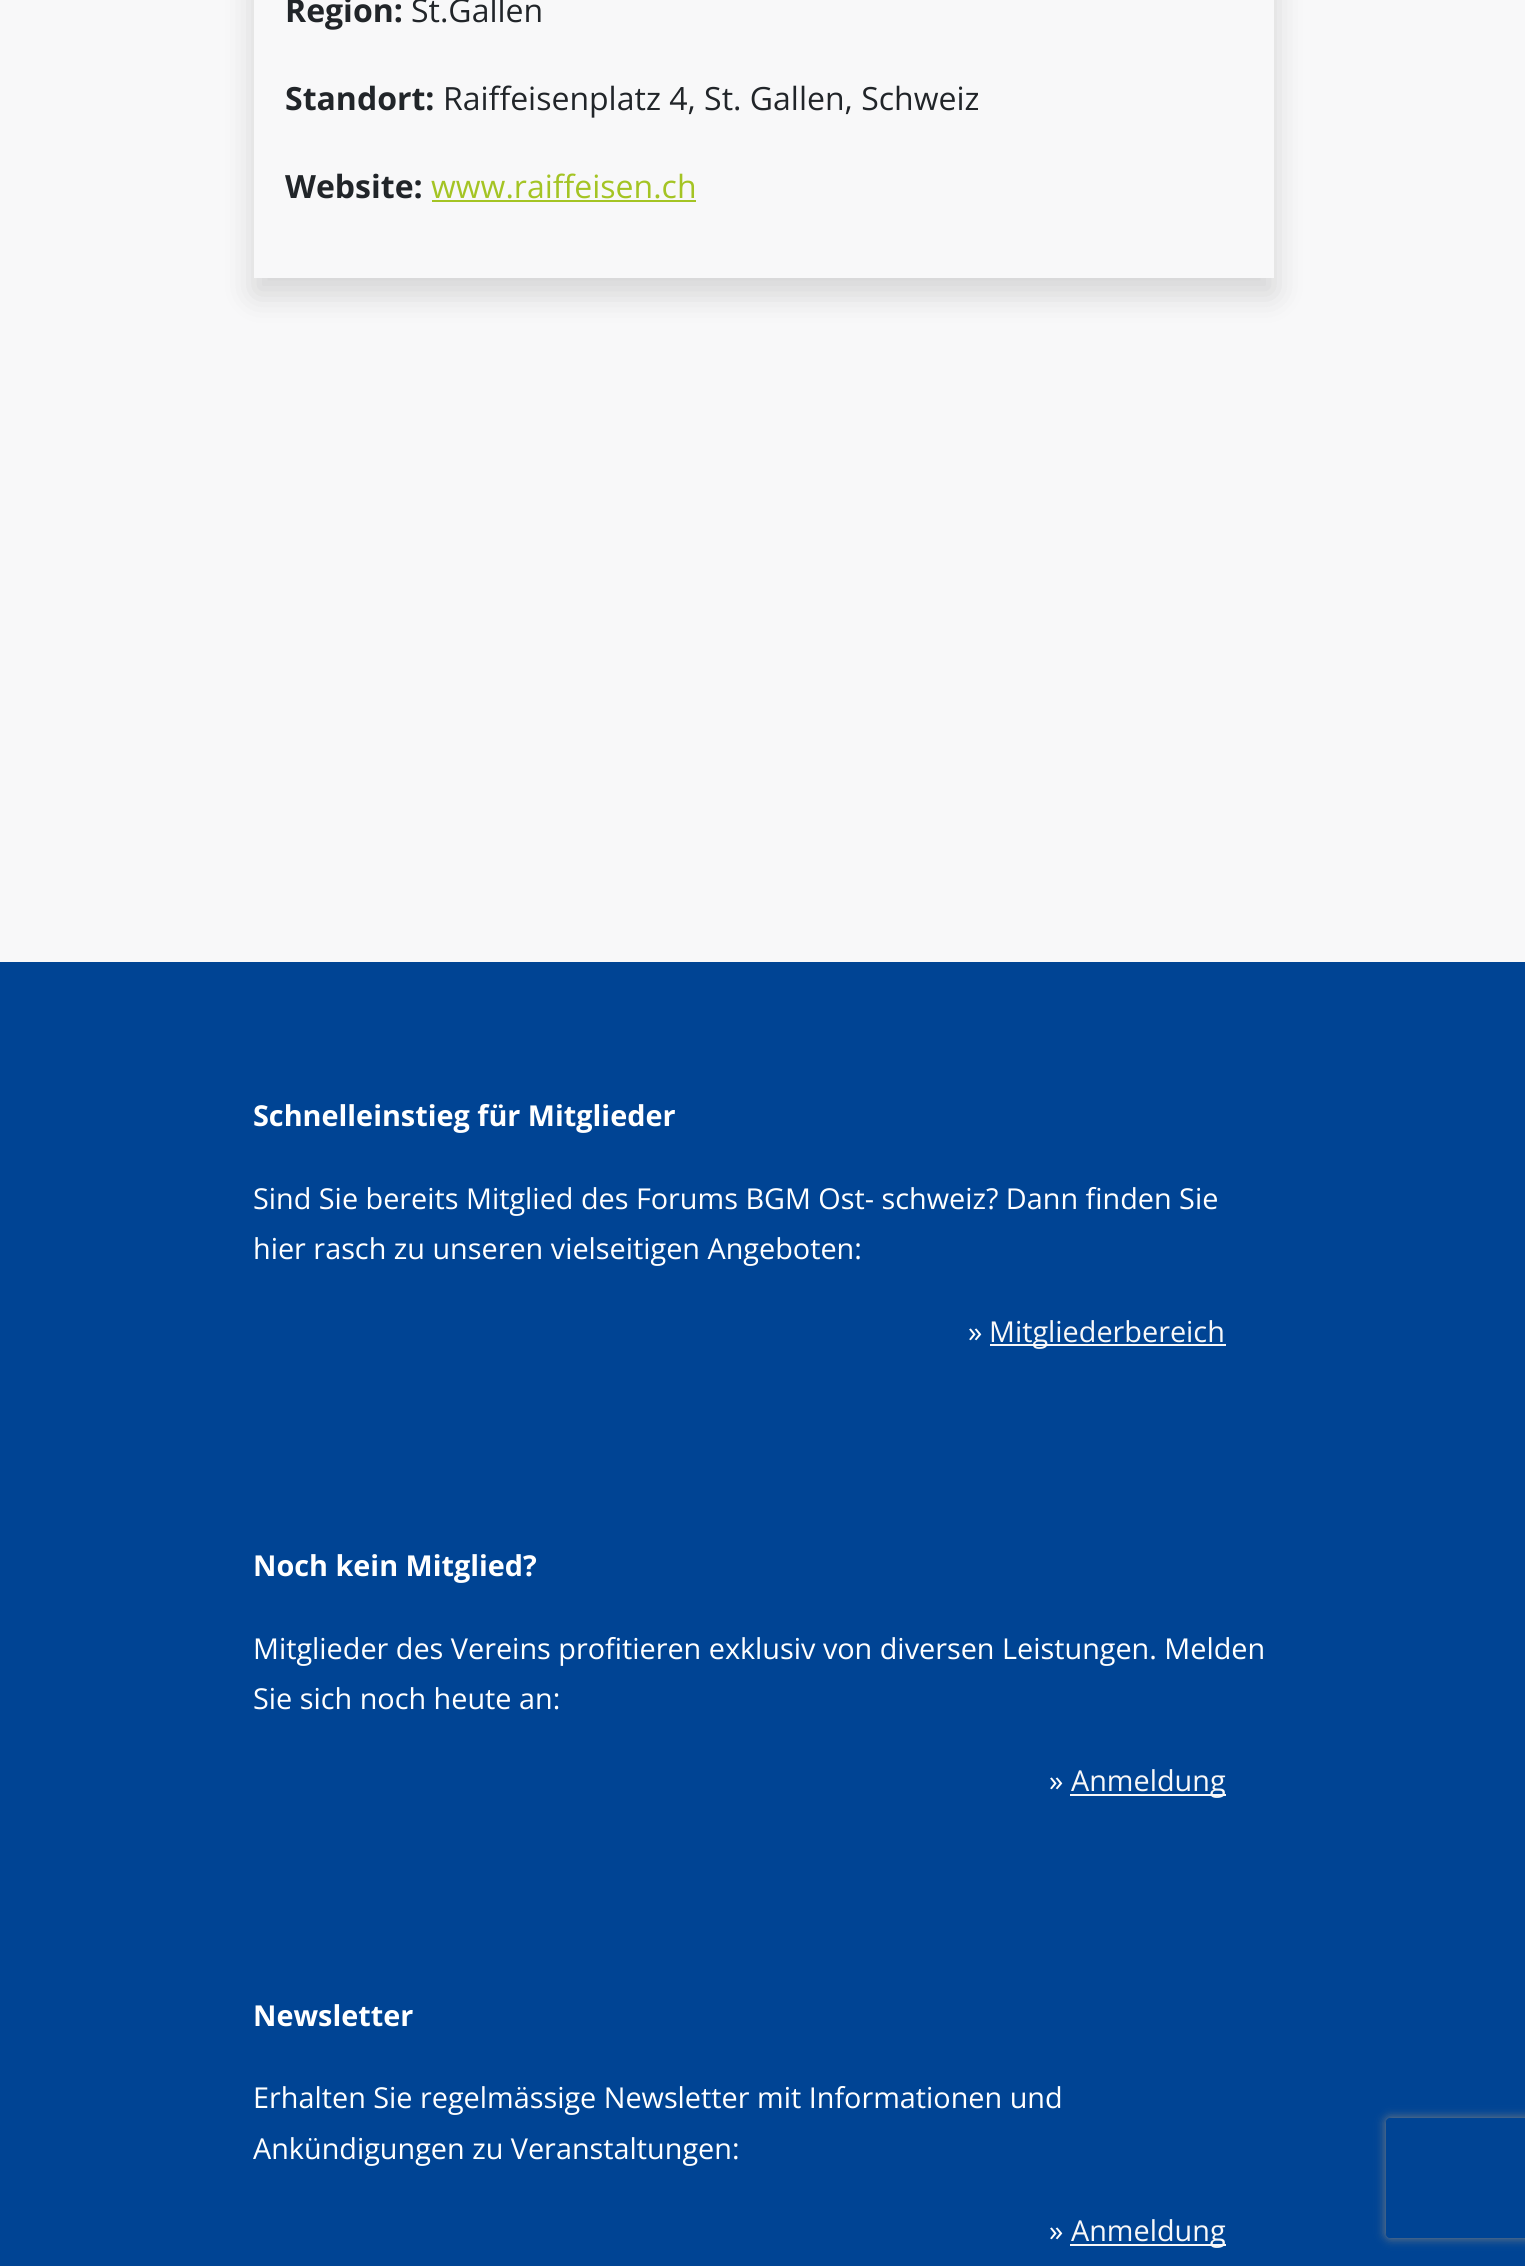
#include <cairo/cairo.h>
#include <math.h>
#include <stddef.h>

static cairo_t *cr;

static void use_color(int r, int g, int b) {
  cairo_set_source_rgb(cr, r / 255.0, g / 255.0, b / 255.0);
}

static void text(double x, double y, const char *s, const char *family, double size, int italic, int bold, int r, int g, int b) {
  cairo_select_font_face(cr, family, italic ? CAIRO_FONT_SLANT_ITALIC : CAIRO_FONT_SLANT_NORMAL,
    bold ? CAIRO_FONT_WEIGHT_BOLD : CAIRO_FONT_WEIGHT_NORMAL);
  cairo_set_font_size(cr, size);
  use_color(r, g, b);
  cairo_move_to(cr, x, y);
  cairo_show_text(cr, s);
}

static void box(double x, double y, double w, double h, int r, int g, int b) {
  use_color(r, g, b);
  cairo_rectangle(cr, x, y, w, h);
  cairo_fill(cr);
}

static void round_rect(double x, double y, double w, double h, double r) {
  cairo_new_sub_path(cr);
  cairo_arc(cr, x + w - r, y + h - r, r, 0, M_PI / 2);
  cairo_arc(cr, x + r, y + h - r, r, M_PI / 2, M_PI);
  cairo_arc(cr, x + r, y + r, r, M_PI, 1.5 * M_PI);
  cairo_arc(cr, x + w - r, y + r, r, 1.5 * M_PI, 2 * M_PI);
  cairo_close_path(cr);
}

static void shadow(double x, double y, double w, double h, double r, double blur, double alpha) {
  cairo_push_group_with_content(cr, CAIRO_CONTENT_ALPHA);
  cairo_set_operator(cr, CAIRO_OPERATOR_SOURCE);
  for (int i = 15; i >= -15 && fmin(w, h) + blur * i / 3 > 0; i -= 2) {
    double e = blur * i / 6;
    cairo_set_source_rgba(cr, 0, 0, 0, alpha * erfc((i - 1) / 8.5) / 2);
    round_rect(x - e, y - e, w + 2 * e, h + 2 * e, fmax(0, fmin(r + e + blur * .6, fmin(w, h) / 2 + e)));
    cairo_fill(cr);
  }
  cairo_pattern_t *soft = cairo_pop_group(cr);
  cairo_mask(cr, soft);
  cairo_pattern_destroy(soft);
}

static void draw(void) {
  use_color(248, 248, 249);
  cairo_paint(cr);
  cairo_save(cr);
  cairo_set_fill_rule(cr, CAIRO_FILL_RULE_EVEN_ODD);
  cairo_new_path(cr);
  cairo_move_to(cr, 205, 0);
  cairo_line_to(cr, 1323, 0);
  cairo_line_to(cr, 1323, 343);
  cairo_line_to(cr, 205, 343);
  cairo_close_path(cr);
  cairo_move_to(cr, 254, -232);
  cairo_line_to(cr, 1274, -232);
  cairo_line_to(cr, 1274, 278);
  cairo_line_to(cr, 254, 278);
  cairo_close_path(cr);
  cairo_clip(cr);
  use_color(1, 0, 0);
  shadow(254, -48, 1020, 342, 0, 16, 0.15);
  cairo_restore(cr);
  box(432, 200, 264, 2, 164, 196, 36);
  box(0, 962, 1525, 1304, 0, 68, 148);
  box(990, 1344, 236, 2, 248, 248, 249);
  box(1070, 1794, 156, 2, 248, 248, 249);
  box(1070, 2244, 156, 2, 248, 248, 249);
  cairo_save(cr);
  cairo_set_fill_rule(cr, CAIRO_FILL_RULE_EVEN_ODD);
  cairo_new_path(cr);
  cairo_move_to(cr, 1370, 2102);
  cairo_line_to(cr, 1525, 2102);
  cairo_line_to(cr, 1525, 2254);
  cairo_line_to(cr, 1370, 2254);
  cairo_close_path(cr);
  cairo_move_to(cr, 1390, 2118);
  cairo_line_to(cr, 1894, 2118);
  cairo_curve_to(cr, 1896, 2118, 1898, 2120, 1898, 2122);
  cairo_line_to(cr, 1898, 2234);
  cairo_curve_to(cr, 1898, 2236, 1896, 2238, 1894, 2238);
  cairo_line_to(cr, 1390, 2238);
  cairo_curve_to(cr, 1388, 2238, 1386, 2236, 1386, 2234);
  cairo_line_to(cr, 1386, 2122);
  cairo_curve_to(cr, 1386, 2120, 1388, 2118, 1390, 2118);
  cairo_close_path(cr);
  cairo_clip(cr);
  use_color(128, 128, 128);
  shadow(1386, 2118, 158, 120, 4, 5, 1);
  cairo_restore(cr);
  text(285, 22, "Region:", "Open Sans", 32, 0, 1, 33, 37, 41);
  text(411, 22, "St.Gallen", "Open Sans", 32, 0, 0, 33, 37, 41);
  text(285, 110, "Standort:", "Open Sans", 32, 0, 1, 33, 37, 41);
  text(443, 110, "Raiffeisenplatz 4, St. Gallen, Schweiz", "Open Sans", 32, 0, 0, 33, 37, 41);
  text(285, 198, "Website:", "Open Sans", 32, 0, 1, 33, 37, 41);
  text(431, 198, "www.raiffeisen.ch", "Open Sans", 32, 0, 0, 164, 196, 36);
  text(253, 1126, "Schnelleinstieg für Mitglieder", "Open Sans", 28.8, 0, 1, 255, 255, 255);
  text(253, 1209, "Sind Sie bereits Mitglied des Forums BGM Ost- schweiz? Dann finden Sie", "Open Sans", 28.8, 0, 0, 255, 255, 255);
  text(253, 1259, "hier rasch zu unseren vielseitigen Angeboten:", "Open Sans", 28.8, 0, 0, 255, 255, 255);
  text(968, 1342, "»", "Open Sans", 28.8, 0, 0, 255, 255, 255);
  text(989, 1342, "Mitgliederbereich", "Open Sans", 28.8, 0, 0, 248, 248, 249);
  text(253, 1576, "Noch kein Mitglied?", "Open Sans", 28.8, 0, 1, 255, 255, 255);
  text(253, 1659, "Mitglieder des Vereins profitieren exklusiv von diversen Leistungen. Melden", "Open Sans", 28.8, 0, 0, 255, 255, 255);
  text(253, 1709, "Sie sich noch heute an:", "Open Sans", 28.8, 0, 0, 255, 255, 255);
  text(1049, 1791, "»", "Open Sans", 28.8, 0, 0, 255, 255, 255);
  text(1071, 1791, "Anmeldung", "Open Sans", 28.8, 0, 0, 248, 248, 249);
  text(253, 2026, "Newsletter", "Open Sans", 28.8, 0, 1, 255, 255, 255);
  text(253, 2108, "Erhalten Sie regelmässige Newsletter mit Informationen und", "Open Sans", 28.8, 0, 0, 255, 255, 255);
  text(253, 2159, "Ankündigungen zu Veranstaltungen:", "Open Sans", 28.8, 0, 0, 255, 255, 255);
  text(1049, 2241, "»", "Open Sans", 28.8, 0, 0, 255, 255, 255);
  text(1071, 2241, "Anmeldung", "Open Sans", 28.8, 0, 0, 248, 248, 249);
}

int main(void) {
  cairo_surface_t *surface = cairo_image_surface_create(CAIRO_FORMAT_RGB24, 1525, 2266);
  cr = cairo_create(surface);
  cairo_font_options_t *options = cairo_font_options_create();
  cairo_font_options_set_hint_metrics(options, CAIRO_HINT_METRICS_OFF);
  cairo_font_options_set_hint_style(options, CAIRO_HINT_STYLE_NONE);
  cairo_set_font_options(cr, options);
  cairo_set_miter_limit(cr, 4);
  draw();
  cairo_surface_write_to_png(surface, "out.png");
  cairo_font_options_destroy(options);
  cairo_destroy(cr);
  cairo_surface_destroy(surface);
  return 0;
}
